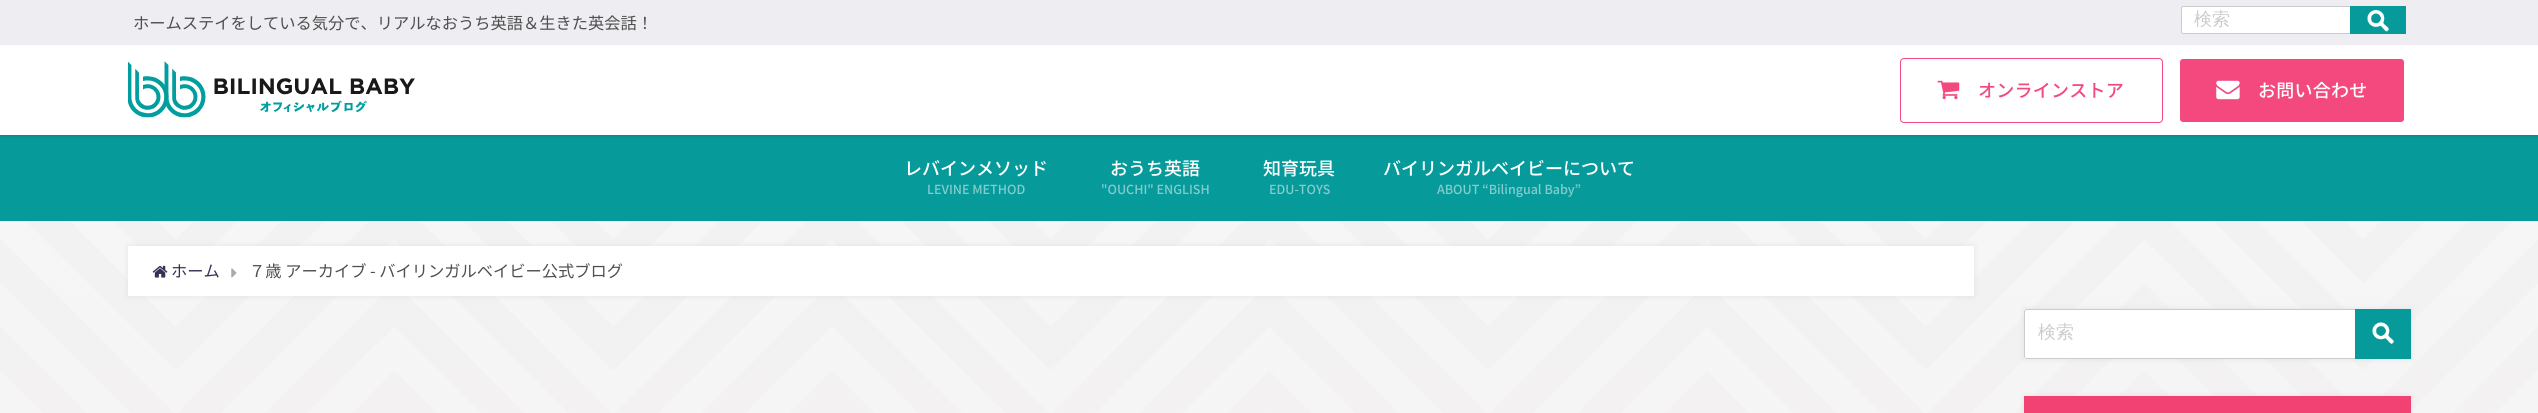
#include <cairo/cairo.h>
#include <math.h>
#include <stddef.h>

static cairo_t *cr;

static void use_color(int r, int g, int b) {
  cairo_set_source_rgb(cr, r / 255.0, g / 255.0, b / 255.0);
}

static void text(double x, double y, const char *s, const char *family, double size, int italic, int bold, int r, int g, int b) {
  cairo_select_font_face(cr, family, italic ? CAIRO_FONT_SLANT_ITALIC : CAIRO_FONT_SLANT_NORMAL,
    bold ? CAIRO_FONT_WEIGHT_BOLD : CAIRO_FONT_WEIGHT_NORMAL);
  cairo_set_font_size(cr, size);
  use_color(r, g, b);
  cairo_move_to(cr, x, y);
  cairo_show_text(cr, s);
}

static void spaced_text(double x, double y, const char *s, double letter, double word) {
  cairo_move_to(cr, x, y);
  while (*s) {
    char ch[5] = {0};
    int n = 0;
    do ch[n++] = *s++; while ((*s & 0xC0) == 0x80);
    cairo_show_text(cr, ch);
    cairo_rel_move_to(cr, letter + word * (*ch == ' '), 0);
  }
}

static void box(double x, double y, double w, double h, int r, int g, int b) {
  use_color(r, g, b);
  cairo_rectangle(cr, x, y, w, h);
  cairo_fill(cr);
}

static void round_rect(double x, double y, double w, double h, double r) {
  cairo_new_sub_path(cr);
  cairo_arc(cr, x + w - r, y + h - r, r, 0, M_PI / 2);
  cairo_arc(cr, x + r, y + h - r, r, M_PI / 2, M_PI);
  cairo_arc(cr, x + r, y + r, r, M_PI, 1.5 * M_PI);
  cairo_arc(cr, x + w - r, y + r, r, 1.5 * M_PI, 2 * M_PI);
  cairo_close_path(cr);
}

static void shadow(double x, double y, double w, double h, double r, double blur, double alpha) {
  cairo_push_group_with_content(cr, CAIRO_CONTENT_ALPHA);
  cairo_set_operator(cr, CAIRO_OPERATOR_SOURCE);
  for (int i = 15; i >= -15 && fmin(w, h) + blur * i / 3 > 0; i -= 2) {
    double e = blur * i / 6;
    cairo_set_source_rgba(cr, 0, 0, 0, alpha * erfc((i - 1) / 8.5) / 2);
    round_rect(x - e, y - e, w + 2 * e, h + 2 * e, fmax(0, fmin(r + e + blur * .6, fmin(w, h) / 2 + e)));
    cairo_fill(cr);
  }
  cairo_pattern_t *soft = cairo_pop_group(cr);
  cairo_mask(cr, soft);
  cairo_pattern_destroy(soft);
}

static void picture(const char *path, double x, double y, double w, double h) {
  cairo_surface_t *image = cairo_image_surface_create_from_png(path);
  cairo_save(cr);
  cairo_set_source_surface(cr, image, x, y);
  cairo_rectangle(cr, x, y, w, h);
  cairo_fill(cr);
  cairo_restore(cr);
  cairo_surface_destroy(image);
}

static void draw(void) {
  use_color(255, 255, 255);
  cairo_paint(cr);
  box(0, 135, 2538, 86, 7, 154, 155);
  use_color(0, 0, 0);
  shadow(0, 0, 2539, 135, 0, 2.5, 0.2);
  box(0, 45, 2538, 90, 255, 255, 255);
  box(0, 0, 2538, 45, 237, 237, 242);
  use_color(255, 255, 255);
  round_rect(2181.5, 6.5, 224, 27, 2);
  cairo_fill_preserve(cr);
  use_color(204, 204, 204);
  cairo_set_line_width(cr, 1);
  cairo_stroke(cr);
  box(2350, 6, 56, 28, 7, 154, 155);
  picture("img_01.png", 2367, 10, 22, 22);
  picture("img_02.png", 128, 61, 287, 57);
  round_rect(1900.5, 58.5, 262, 64, 3.5);
  use_color(243, 73, 126);
  cairo_stroke(cr);
  picture("img_03.png", 1937, 80, 23, 20);
  round_rect(2179.5, 58.5, 225, 64, 3.5);
  cairo_fill_preserve(cr);
  use_color(255, 255, 255);
  cairo_stroke(cr);
  picture("img_04.png", 2216, 80, 24, 20);
  picture("img_05.png", 0, 221, 2538, 192);
  use_color(150, 150, 150);
  shadow(128, 246, 1846, 50, 0, 3, 0.2);
  box(128, 246, 1846, 50, 255, 255, 255);
  picture("img_06.png", 152, 265, 16, 13);
  picture("img_07.png", 231, 268, 6, 10);
  use_color(150, 150, 150);
  shadow(2024, 309, 387, 50, 0, 3, 0.2);
  box(2024, 309, 331, 50, 255, 255, 255);
  round_rect(2024.5, 309.5, 386, 49, 2);
  use_color(204, 204, 204);
  cairo_stroke(cr);
  box(2355, 309, 56, 50, 7, 154, 155);
  picture("img_08.png", 2372, 322, 22, 22);
  use_color(150, 150, 150);
  shadow(2024, 396, 387, 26, 0, 3, 0.2);
  box(2024, 396, 387, 17, 242, 66, 115);
  text(133, 29, "ホームステイをしている気分で、リアルなおうち英語＆生きた英会話！", "Noto Sans JP", 16.25, 0, 0, 79, 79, 79);
  text(2194, 25, "検索", "WenQuanYi Zen Hei Medium", 18, 0, 0, 204, 204, 204);
  cairo_select_font_face(cr, "Noto Sans JP Medium", CAIRO_FONT_SLANT_NORMAL, CAIRO_FONT_WEIGHT_NORMAL);
  use_color(243, 73, 126);
  spaced_text(1978, 97, "オンラインストア", 0.25, 0);
  use_color(255, 255, 255);
  spaced_text(2258, 97, "お問い合わせ", 0.25, 0);
  text(904, 175, "レバインメソッド", "Noto Sans JP Medium", 18, 0, 0, 255, 255, 255);
  text(927, 194, "LEVINE METHOD", "Noto Sans JP Medium", 12.5, 0, 0, 131, 205, 205);
  text(1110, 175, "おうち英語", "Noto Sans JP Medium", 18, 0, 0, 255, 255, 255);
  text(1101, 194, "\"OUCHI\" ENGLISH", "Noto Sans JP Medium", 12.5, 0, 0, 131, 205, 205);
  text(1263, 175, "知育玩具", "Noto Sans JP Medium", 18, 0, 0, 255, 255, 255);
  text(1269, 194, "EDU-TOYS", "Noto Sans JP Medium", 12.5, 0, 0, 131, 205, 205);
  text(1383, 175, "バイリンガルベイビーについて", "Noto Sans JP Medium", 18, 0, 0, 255, 255, 255);
  text(1437, 194, "ABOUT “Bilingual Baby”", "Noto Sans JP Medium", 12.5, 0, 0, 131, 205, 205);
  text(171, 277, "ホーム", "Noto Sans JP", 16.25, 0, 0, 51, 51, 85);
  text(249, 277, "７歳 アーカイブ - バイリンガルベイビー公式ブログ", "Noto Sans JP", 16.25, 0, 0, 79, 79, 79);
  text(2038, 338, "検索", "WenQuanYi Zen Hei Medium", 18, 0, 0, 204, 204, 204);
}

int main(void) {
  cairo_surface_t *surface = cairo_image_surface_create(CAIRO_FORMAT_RGB24, 2538, 413);
  cr = cairo_create(surface);
  cairo_font_options_t *options = cairo_font_options_create();
  cairo_font_options_set_hint_metrics(options, CAIRO_HINT_METRICS_OFF);
  cairo_font_options_set_hint_style(options, CAIRO_HINT_STYLE_NONE);
  cairo_set_font_options(cr, options);
  cairo_set_miter_limit(cr, 4);
  draw();
  cairo_surface_write_to_png(surface, "out.png");
  cairo_font_options_destroy(options);
  cairo_destroy(cr);
  cairo_surface_destroy(surface);
  return 0;
}
